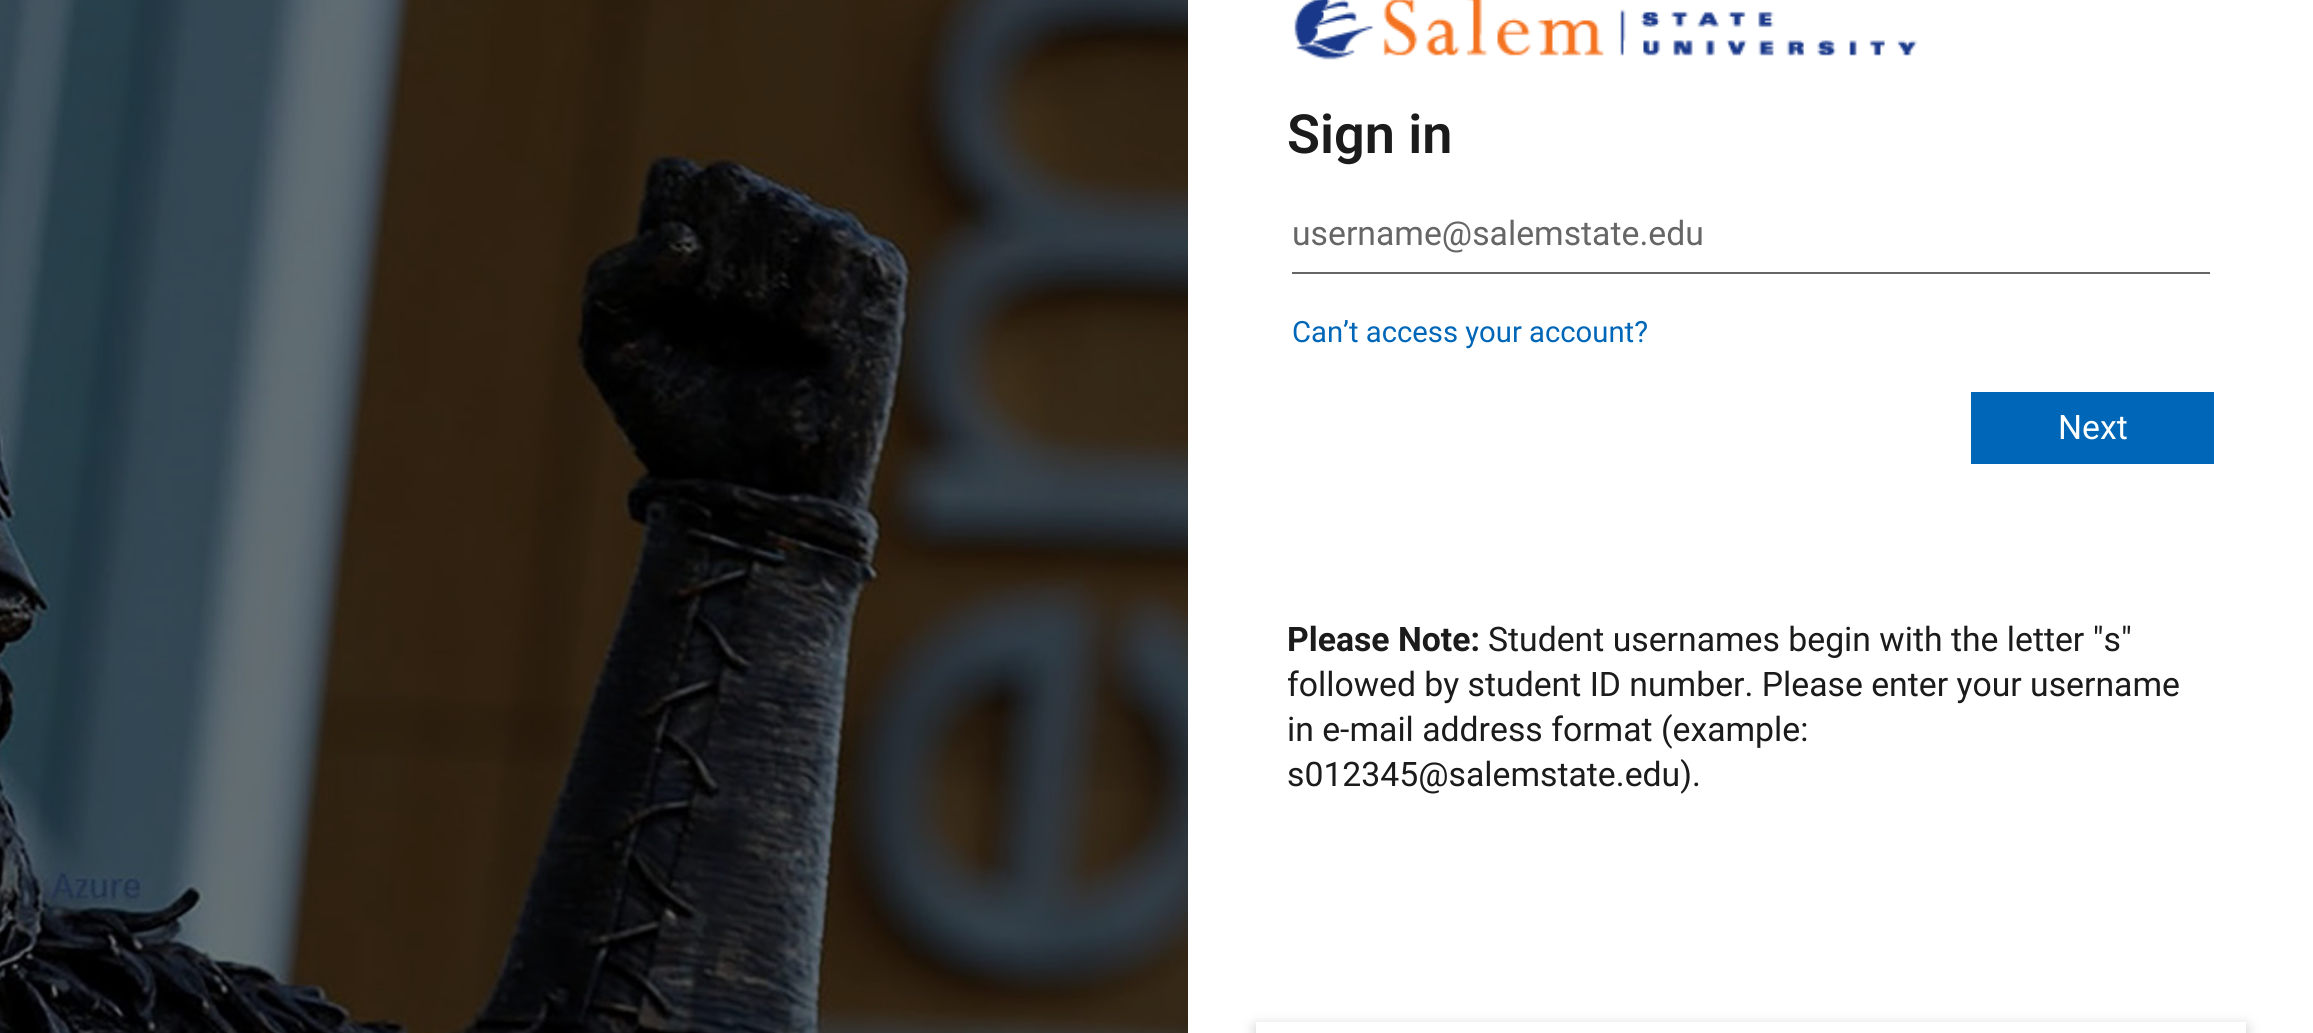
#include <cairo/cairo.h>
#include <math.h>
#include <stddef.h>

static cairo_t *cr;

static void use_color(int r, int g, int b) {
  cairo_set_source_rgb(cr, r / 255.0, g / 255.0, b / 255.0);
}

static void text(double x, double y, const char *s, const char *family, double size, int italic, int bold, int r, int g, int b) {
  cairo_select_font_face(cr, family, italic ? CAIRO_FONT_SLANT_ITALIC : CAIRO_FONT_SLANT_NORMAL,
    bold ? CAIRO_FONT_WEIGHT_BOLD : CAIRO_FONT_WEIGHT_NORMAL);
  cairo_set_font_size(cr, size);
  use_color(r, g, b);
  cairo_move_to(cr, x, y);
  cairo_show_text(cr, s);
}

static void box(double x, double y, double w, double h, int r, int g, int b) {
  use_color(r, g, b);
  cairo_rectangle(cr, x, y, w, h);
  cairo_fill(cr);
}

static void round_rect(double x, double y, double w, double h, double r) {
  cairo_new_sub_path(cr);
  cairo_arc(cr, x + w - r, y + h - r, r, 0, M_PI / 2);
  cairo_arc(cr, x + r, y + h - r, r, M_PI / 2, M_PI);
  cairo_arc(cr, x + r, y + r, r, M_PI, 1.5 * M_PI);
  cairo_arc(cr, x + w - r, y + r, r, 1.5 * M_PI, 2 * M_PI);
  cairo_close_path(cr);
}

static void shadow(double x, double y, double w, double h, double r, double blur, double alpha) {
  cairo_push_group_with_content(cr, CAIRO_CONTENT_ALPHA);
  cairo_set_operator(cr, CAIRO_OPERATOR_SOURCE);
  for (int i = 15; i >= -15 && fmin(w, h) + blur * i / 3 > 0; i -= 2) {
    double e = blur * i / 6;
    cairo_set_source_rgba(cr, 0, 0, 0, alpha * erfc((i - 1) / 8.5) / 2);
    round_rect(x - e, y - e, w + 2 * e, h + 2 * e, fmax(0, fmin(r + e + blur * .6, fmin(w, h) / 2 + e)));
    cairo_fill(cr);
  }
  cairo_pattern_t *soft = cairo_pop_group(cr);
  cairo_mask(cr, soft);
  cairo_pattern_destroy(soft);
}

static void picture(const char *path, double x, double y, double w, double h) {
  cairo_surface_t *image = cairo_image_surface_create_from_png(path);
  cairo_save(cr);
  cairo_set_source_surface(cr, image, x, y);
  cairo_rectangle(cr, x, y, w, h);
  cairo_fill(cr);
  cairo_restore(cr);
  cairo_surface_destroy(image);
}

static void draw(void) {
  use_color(255, 255, 255);
  cairo_paint(cr);
  picture("img_01.png", 0, 0, 1188, 1033);
  picture("img_02.png", 1294, 0, 624, 60);
  box(1292, 272, 918, 2, 102, 102, 102);
  box(1971, 392, 243, 72, 0, 103, 184);
  use_color(0, 0, 0);
  shadow(1256, 1026, 990, 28, 0, 7, 0.2);
  box(1256, 1022, 990, 11, 255, 255, 255);
  text(1287, 153, "Sign in", "Roboto SemiBold", 54, 0, 0, 27, 27, 27);
  text(1292, 245, "username@salemstate.edu", "Roboto", 33.75, 0, 0, 102, 102, 102);
  text(1292, 342, "Can’t access your account?", "Roboto", 29.25, 0, 0, 0, 103, 184);
  text(2058, 439, "Next", "Roboto", 33.75, 0, 0, 255, 255, 255);
  text(1287, 651, "Please Note:", "Roboto", 33.75, 0, 1, 27, 27, 27);
  text(1488, 651, "Student usernames begin with the letter \"s\"", "Roboto", 33.75, 0, 0, 27, 27, 27);
  text(1287, 696, "followed by student ID number. Please enter your username", "Roboto", 33.75, 0, 0, 27, 27, 27);
  text(1287, 741, "in e-mail address format (example:", "Roboto", 33.75, 0, 0, 27, 27, 27);
  text(1287, 786, "s012345@salemstate.edu).", "Roboto", 33.75, 0, 0, 27, 27, 27);
}

int main(void) {
  cairo_surface_t *surface = cairo_image_surface_create(CAIRO_FORMAT_RGB24, 2313, 1033);
  cr = cairo_create(surface);
  cairo_font_options_t *options = cairo_font_options_create();
  cairo_font_options_set_hint_metrics(options, CAIRO_HINT_METRICS_OFF);
  cairo_font_options_set_hint_style(options, CAIRO_HINT_STYLE_NONE);
  cairo_set_font_options(cr, options);
  cairo_set_miter_limit(cr, 4);
  draw();
  cairo_surface_write_to_png(surface, "out.png");
  cairo_font_options_destroy(options);
  cairo_destroy(cr);
  cairo_surface_destroy(surface);
  return 0;
}
